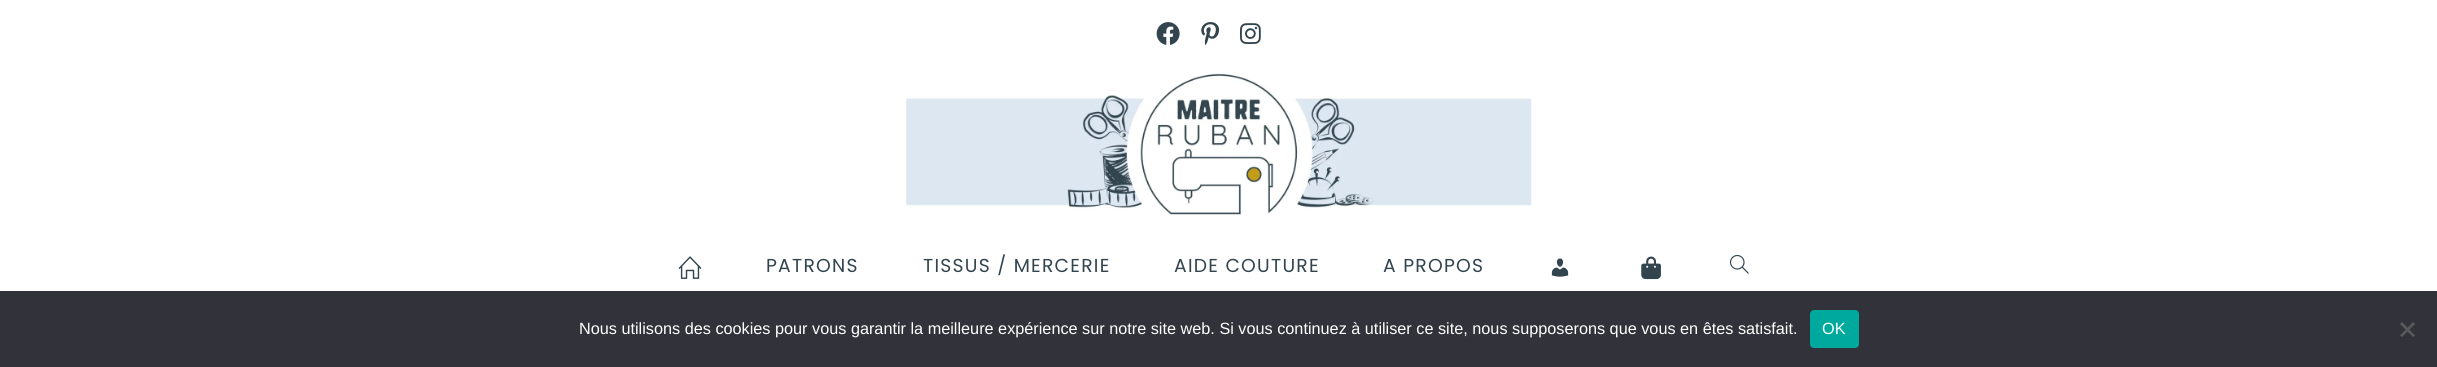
#include <cairo/cairo.h>
#include <math.h>
#include <stddef.h>

static cairo_t *cr;

static void use_color(int r, int g, int b) {
  cairo_set_source_rgb(cr, r / 255.0, g / 255.0, b / 255.0);
}

static void text(double x, double y, const char *s, const char *family, double size, int italic, int bold, int r, int g, int b) {
  cairo_select_font_face(cr, family, italic ? CAIRO_FONT_SLANT_ITALIC : CAIRO_FONT_SLANT_NORMAL,
    bold ? CAIRO_FONT_WEIGHT_BOLD : CAIRO_FONT_WEIGHT_NORMAL);
  cairo_set_font_size(cr, size);
  use_color(r, g, b);
  cairo_move_to(cr, x, y);
  cairo_show_text(cr, s);
}

static void spaced_text(double x, double y, const char *s, double letter, double word) {
  cairo_move_to(cr, x, y);
  while (*s) {
    char ch[5] = {0};
    int n = 0;
    do ch[n++] = *s++; while ((*s & 0xC0) == 0x80);
    cairo_show_text(cr, ch);
    cairo_rel_move_to(cr, letter + word * (*ch == ' '), 0);
  }
}

static void box(double x, double y, double w, double h, int r, int g, int b) {
  use_color(r, g, b);
  cairo_rectangle(cr, x, y, w, h);
  cairo_fill(cr);
}

static void round_rect(double x, double y, double w, double h, double r) {
  cairo_new_sub_path(cr);
  cairo_arc(cr, x + w - r, y + h - r, r, 0, M_PI / 2);
  cairo_arc(cr, x + r, y + h - r, r, M_PI / 2, M_PI);
  cairo_arc(cr, x + r, y + r, r, M_PI, 1.5 * M_PI);
  cairo_arc(cr, x + w - r, y + r, r, 1.5 * M_PI, 2 * M_PI);
  cairo_close_path(cr);
}

static void picture(const char *path, double x, double y, double w, double h) {
  cairo_surface_t *image = cairo_image_surface_create_from_png(path);
  cairo_save(cr);
  cairo_set_source_surface(cr, image, x, y);
  cairo_rectangle(cr, x, y, w, h);
  cairo_fill(cr);
  cairo_restore(cr);
  cairo_surface_destroy(image);
}

static void draw(void) {
  use_color(255, 255, 255);
  cairo_paint(cr);
  picture("img_01.png", 1156, 22, 24, 23);
  picture("img_02.png", 1201, 22, 19, 24);
  picture("img_03.png", 1240, 23, 21, 21);
  picture("img_04.png", 906, 73, 626, 142);
  picture("img_05.png", 678, 256, 24, 23);
  picture("img_06.png", 1551, 258, 18, 19);
  picture("img_07.png", 1641, 256, 20, 24);
  picture("img_08.png", 1730, 254, 19, 20);
  box(0, 291, 2437, 76, 50, 50, 58);
  use_color(0, 169, 157);
  round_rect(1810, 310, 49, 38, 4);
  cairo_fill(cr);
  use_color(89, 89, 93);
  cairo_new_path(cr);
  cairo_move_to(cr, 2413, 322);
  cairo_line_to(cr, 2415, 324);
  cairo_line_to(cr, 2402, 337);
  cairo_line_to(cr, 2400, 335.5);
  cairo_close_path(cr);
  cairo_fill(cr);
  cairo_new_path(cr);
  cairo_move_to(cr, 2400, 324);
  cairo_line_to(cr, 2402, 322);
  cairo_line_to(cr, 2415, 335.5);
  cairo_line_to(cr, 2413, 337);
  cairo_close_path(cr);
  cairo_fill(cr);
  cairo_select_font_face(cr, "Poppins", CAIRO_FONT_SLANT_NORMAL, CAIRO_FONT_WEIGHT_NORMAL);
  cairo_set_font_size(cr, 18.75);
  use_color(50, 68, 78);
  spaced_text(766, 272, "PATRONS", 1.25, 0);
  spaced_text(923, 272, "TISSUS / MERCERIE", 1.25, 0);
  spaced_text(1174, 272, "AIDE COUTURE", 1.25, 0);
  spaced_text(1383, 272, "A PROPOS", 1.25, 0);
  text(579, 334, "Nous utilisons des cookies pour vous garantir la meilleure expérience sur notre site web. Si vous continuez à utiliser ce site, nous supposerons que vous en êtes satisfait.", "Liberation Sans", 16.25, 0, 0, 255, 255, 255);
  text(1822, 334, "OK", "Liberation Sans", 16.25, 0, 0, 255, 255, 255);
}

int main(void) {
  cairo_surface_t *surface = cairo_image_surface_create(CAIRO_FORMAT_RGB24, 2437, 367);
  cr = cairo_create(surface);
  cairo_font_options_t *options = cairo_font_options_create();
  cairo_font_options_set_hint_metrics(options, CAIRO_HINT_METRICS_OFF);
  cairo_font_options_set_hint_style(options, CAIRO_HINT_STYLE_NONE);
  cairo_set_font_options(cr, options);
  cairo_set_miter_limit(cr, 4);
  draw();
  cairo_surface_write_to_png(surface, "out.png");
  cairo_font_options_destroy(options);
  cairo_destroy(cr);
  cairo_surface_destroy(surface);
  return 0;
}
